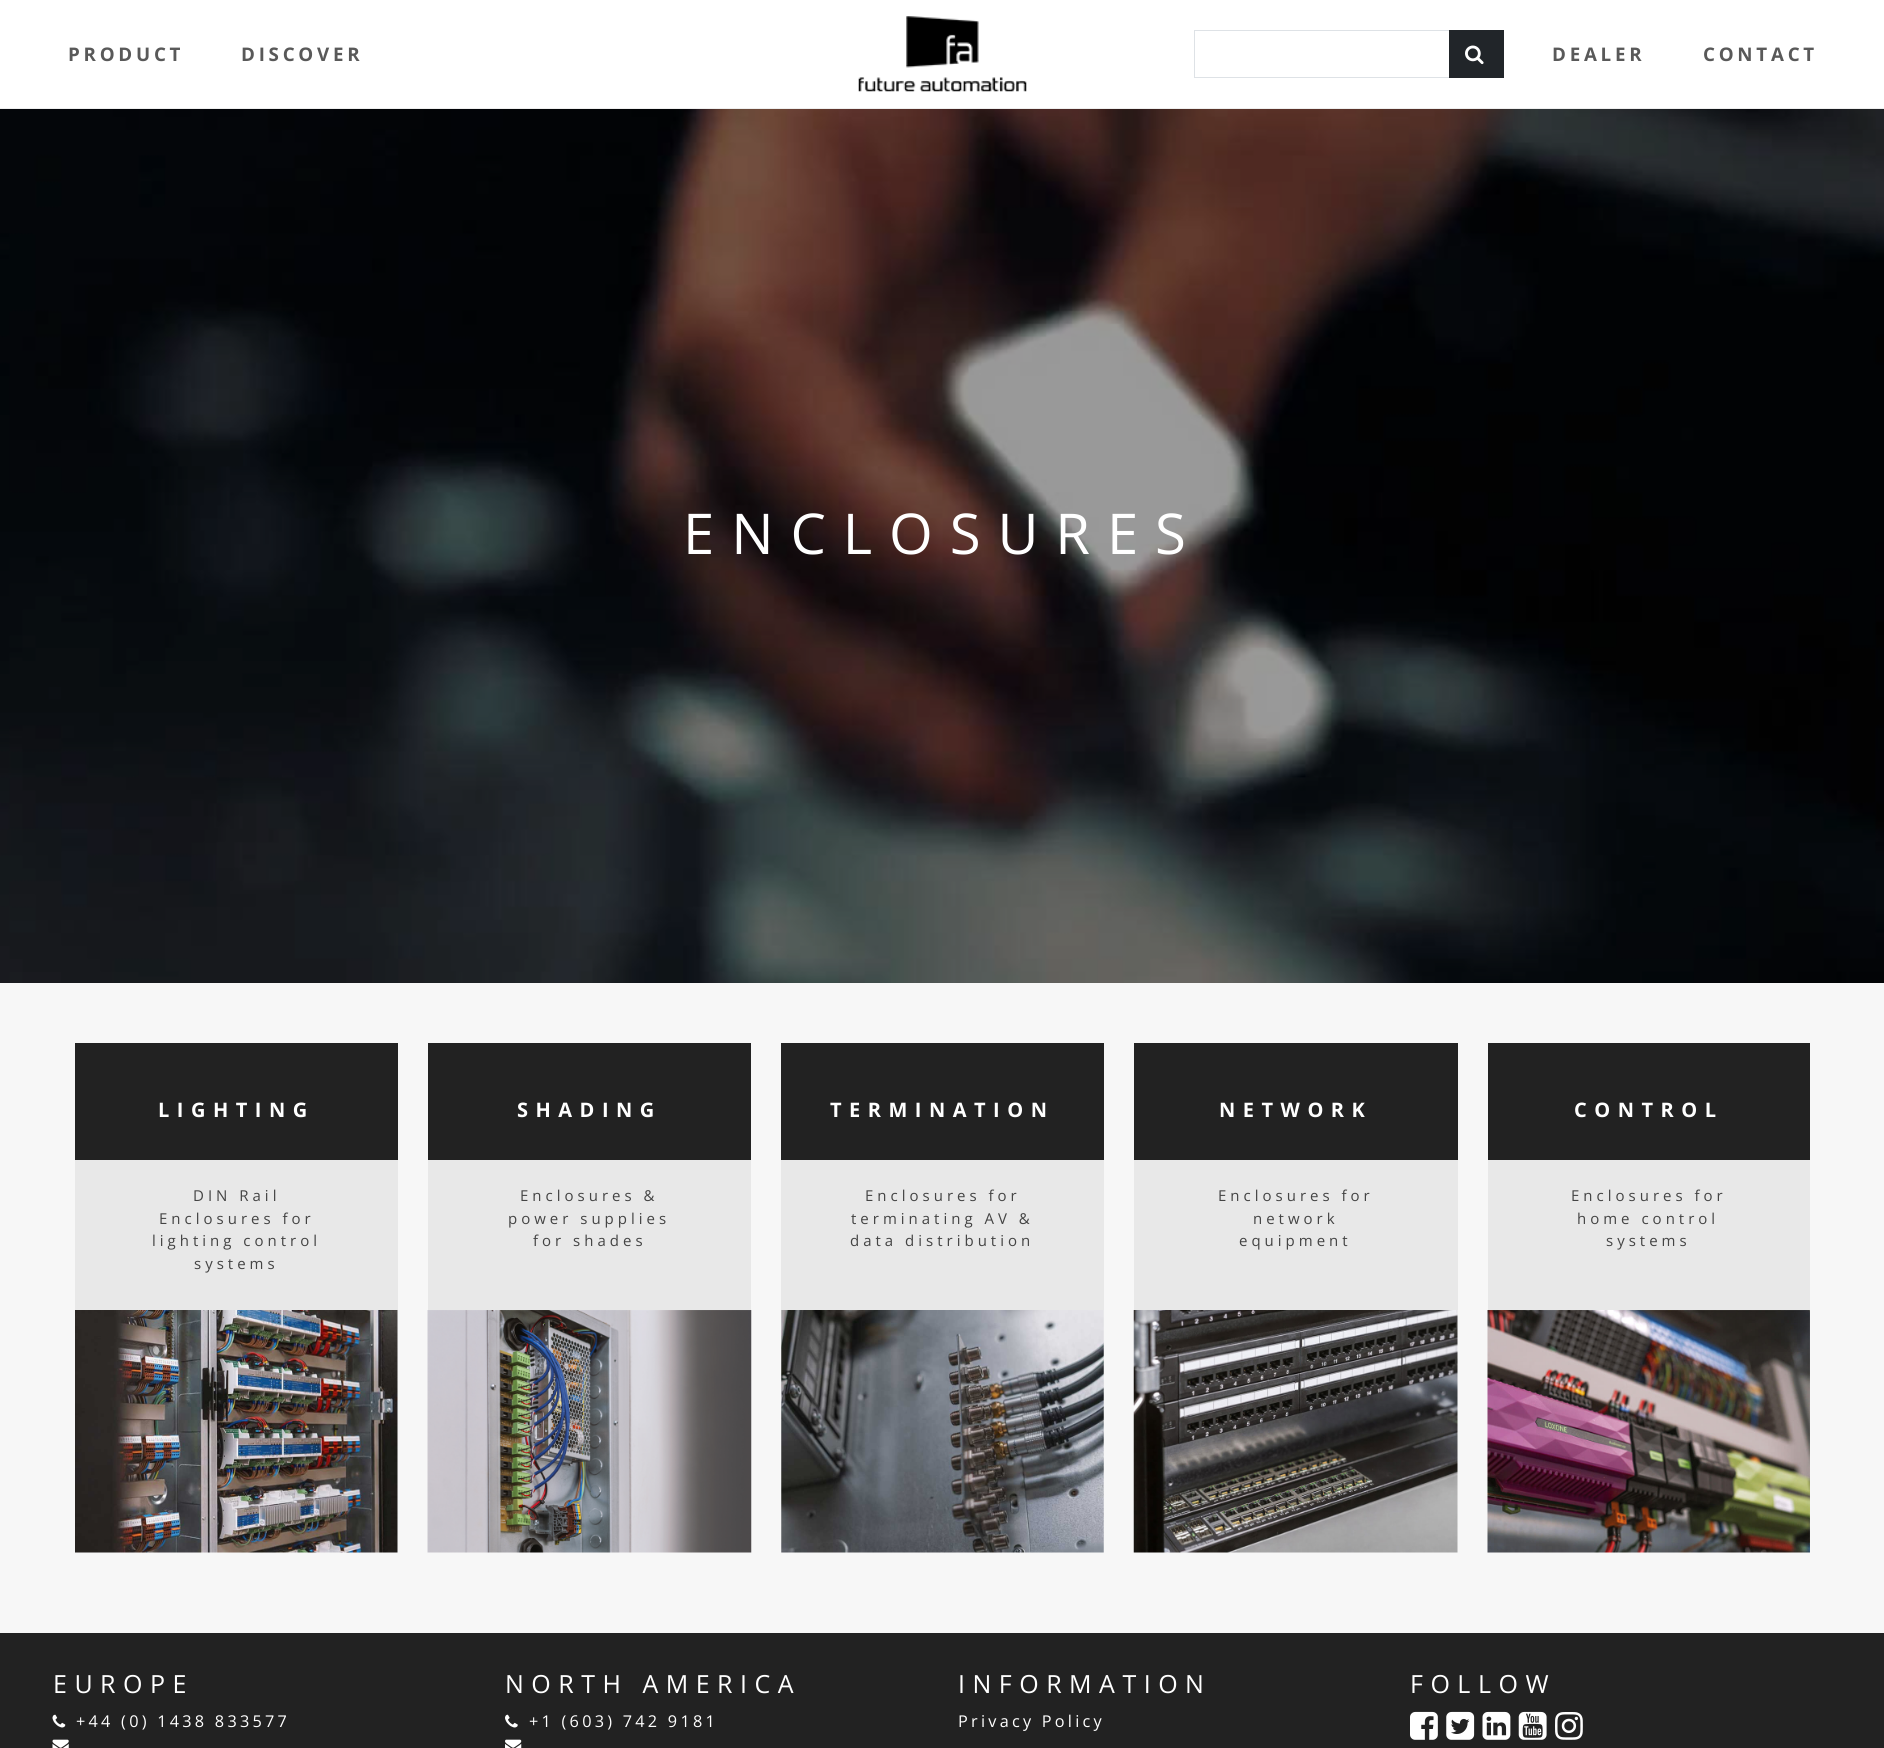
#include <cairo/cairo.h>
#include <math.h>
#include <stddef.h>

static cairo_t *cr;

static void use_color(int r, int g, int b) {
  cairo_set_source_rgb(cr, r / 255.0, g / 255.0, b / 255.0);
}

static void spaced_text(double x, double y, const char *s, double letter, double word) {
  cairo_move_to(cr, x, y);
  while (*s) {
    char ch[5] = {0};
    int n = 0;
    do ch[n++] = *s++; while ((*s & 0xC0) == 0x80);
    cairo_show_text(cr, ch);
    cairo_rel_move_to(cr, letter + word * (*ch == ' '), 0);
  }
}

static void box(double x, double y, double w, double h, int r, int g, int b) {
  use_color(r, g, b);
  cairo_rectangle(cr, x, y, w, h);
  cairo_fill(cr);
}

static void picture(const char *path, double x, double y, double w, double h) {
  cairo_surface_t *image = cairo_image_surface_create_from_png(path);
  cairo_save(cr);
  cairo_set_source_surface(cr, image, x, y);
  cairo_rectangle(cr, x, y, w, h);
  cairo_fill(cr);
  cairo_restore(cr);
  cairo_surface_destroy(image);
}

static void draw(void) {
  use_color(247, 247, 247);
  cairo_paint(cr);
  box(0, 0, 1884, 108, 255, 255, 255);
  box(0, 108, 1884, 1, 238, 238, 238);
  picture("img_01.png", 858, 16, 169, 76);
  cairo_rectangle(cr, 1194.5, 30.5, 255, 47);
  use_color(222, 226, 230);
  cairo_set_line_width(cr, 1);
  cairo_stroke(cr);
  box(1449, 30, 55, 48, 33, 37, 41);
  picture("img_02.png", 1465, 45, 19, 20);
  picture("img_03.png", 0, 109, 1884, 874);
  box(75, 1043, 323, 117, 34, 34, 34);
  box(75, 1160, 323, 150, 232, 232, 232);
  picture("img_04.png", 75, 1310, 323, 243);
  box(428, 1043, 323, 117, 34, 34, 34);
  box(428, 1160, 323, 150, 232, 232, 232);
  picture("img_05.png", 427, 1310, 325, 243);
  box(781, 1043, 323, 117, 34, 34, 34);
  box(781, 1160, 323, 150, 232, 232, 232);
  picture("img_06.png", 781, 1310, 323, 243);
  box(1134, 1043, 324, 117, 34, 34, 34);
  box(1134, 1160, 324, 150, 232, 232, 232);
  picture("img_07.png", 1133, 1310, 325, 243);
  box(1488, 1043, 322, 117, 34, 34, 34);
  box(1488, 1160, 322, 150, 232, 232, 232);
  picture("img_08.png", 1487, 1310, 323, 243);
  box(0, 1633, 1884, 115, 34, 34, 34);
  picture("img_09.png", 52, 1714, 14, 14);
  picture("img_10.png", 52, 1739, 17, 9);
  picture("img_11.png", 505, 1714, 13, 14);
  picture("img_12.png", 505, 1739, 17, 9);
  picture("img_13.png", 1410, 1711, 28, 29);
  picture("img_14.png", 1446, 1711, 29, 29);
  picture("img_15.png", 1482, 1711, 29, 29);
  picture("img_16.png", 1518, 1711, 29, 29);
  picture("img_17.png", 1555, 1712, 28, 28);
  cairo_select_font_face(cr, "Open Sans", CAIRO_FONT_SLANT_NORMAL, CAIRO_FONT_WEIGHT_BOLD);
  cairo_set_font_size(cr, 18.75);
  use_color(89, 89, 89);
  spaced_text(68, 61, "PRODUCT", 3.75, 0);
  spaced_text(241, 61, "DISCOVER", 3.75, 0);
  spaced_text(1552, 61, "DEALER", 3.75, 0);
  spaced_text(1703, 61, "CONTACT", 3.75, 0);
  cairo_select_font_face(cr, "Open Sans", CAIRO_FONT_SLANT_NORMAL, CAIRO_FONT_WEIGHT_NORMAL);
  cairo_set_font_size(cr, 56.25);
  use_color(255, 255, 255);
  spaced_text(683, 554, "ENCLOSURES", 16.9, 0);
  cairo_select_font_face(cr, "Open Sans", CAIRO_FONT_SLANT_NORMAL, CAIRO_FONT_WEIGHT_BOLD);
  cairo_set_font_size(cr, 20);
  spaced_text(158, 1117, "LIGHTING", 7.5, 0);
  cairo_select_font_face(cr, "Open Sans", CAIRO_FONT_SLANT_NORMAL, CAIRO_FONT_WEIGHT_NORMAL);
  cairo_set_font_size(cr, 15);
  use_color(68, 68, 68);
  spaced_text(193, 1201, "DIN Rail", 4, 0);
  spaced_text(159, 1224, "Enclosures for", 4, 0);
  spaced_text(152, 1246, "lighting control", 4, 0);
  spaced_text(194, 1269, "systems", 4, 0);
  cairo_select_font_face(cr, "Open Sans", CAIRO_FONT_SLANT_NORMAL, CAIRO_FONT_WEIGHT_BOLD);
  cairo_set_font_size(cr, 20);
  use_color(255, 255, 255);
  spaced_text(517, 1117, "SHADING", 7.5, 0);
  cairo_select_font_face(cr, "Open Sans", CAIRO_FONT_SLANT_NORMAL, CAIRO_FONT_WEIGHT_NORMAL);
  cairo_set_font_size(cr, 15);
  use_color(68, 68, 68);
  spaced_text(520, 1201, "Enclosures &", 4, 0);
  spaced_text(508, 1224, "power supplies", 4, 0);
  spaced_text(533, 1246, "for shades", 4, 0);
  cairo_select_font_face(cr, "Open Sans", CAIRO_FONT_SLANT_NORMAL, CAIRO_FONT_WEIGHT_BOLD);
  cairo_set_font_size(cr, 20);
  use_color(255, 255, 255);
  spaced_text(830, 1117, "TERMINATION", 7.5, 0);
  cairo_select_font_face(cr, "Open Sans", CAIRO_FONT_SLANT_NORMAL, CAIRO_FONT_WEIGHT_NORMAL);
  cairo_set_font_size(cr, 15);
  use_color(68, 68, 68);
  spaced_text(865, 1201, "Enclosures for", 4, 0);
  spaced_text(851, 1224, "terminating AV &", 4, 0);
  spaced_text(850, 1246, "data distribution", 4, 0);
  cairo_select_font_face(cr, "Open Sans", CAIRO_FONT_SLANT_NORMAL, CAIRO_FONT_WEIGHT_BOLD);
  cairo_set_font_size(cr, 20);
  use_color(255, 255, 255);
  spaced_text(1219, 1117, "NETWORK", 7.5, 0);
  cairo_select_font_face(cr, "Open Sans", CAIRO_FONT_SLANT_NORMAL, CAIRO_FONT_WEIGHT_NORMAL);
  cairo_set_font_size(cr, 15);
  use_color(68, 68, 68);
  spaced_text(1218, 1201, "Enclosures for", 4, 0);
  spaced_text(1253, 1224, "network", 4, 0);
  spaced_text(1239, 1246, "equipment", 4, 0);
  cairo_select_font_face(cr, "Open Sans", CAIRO_FONT_SLANT_NORMAL, CAIRO_FONT_WEIGHT_BOLD);
  cairo_set_font_size(cr, 20);
  use_color(255, 255, 255);
  spaced_text(1574, 1117, "CONTROL", 7.5, 0);
  cairo_select_font_face(cr, "Open Sans", CAIRO_FONT_SLANT_NORMAL, CAIRO_FONT_WEIGHT_NORMAL);
  cairo_set_font_size(cr, 15);
  use_color(68, 68, 68);
  spaced_text(1571, 1201, "Enclosures for", 4, 0);
  spaced_text(1577, 1224, "home control", 4, 0);
  spaced_text(1606, 1246, "systems", 4, 0);
  cairo_set_font_size(cr, 25);
  use_color(255, 255, 255);
  spaced_text(53, 1693, "EUROPE", 7.5, 0);
  cairo_set_font_size(cr, 16.25);
  spaced_text(76, 1727, "+44 (0) 1438 833577", 3.25, 0);
  cairo_set_font_size(cr, 25);
  spaced_text(505, 1693, "NORTH AMERICA", 7.5, 0);
  cairo_set_font_size(cr, 16.25);
  spaced_text(529, 1727, "+1 (603) 742 9181", 3.25, 0);
  cairo_set_font_size(cr, 25);
  spaced_text(958, 1693, "INFORMATION", 7.5, 0);
  cairo_set_font_size(cr, 16.25);
  spaced_text(958, 1727, "Privacy Policy", 3.25, 0);
  cairo_set_font_size(cr, 25);
  spaced_text(1410, 1693, "FOLLOW", 7.5, 0);
}

int main(void) {
  cairo_surface_t *surface = cairo_image_surface_create(CAIRO_FORMAT_RGB24, 1884, 1748);
  cr = cairo_create(surface);
  cairo_font_options_t *options = cairo_font_options_create();
  cairo_font_options_set_hint_metrics(options, CAIRO_HINT_METRICS_OFF);
  cairo_font_options_set_hint_style(options, CAIRO_HINT_STYLE_NONE);
  cairo_set_font_options(cr, options);
  cairo_set_miter_limit(cr, 4);
  draw();
  cairo_surface_write_to_png(surface, "out.png");
  cairo_font_options_destroy(options);
  cairo_destroy(cr);
  cairo_surface_destroy(surface);
  return 0;
}
